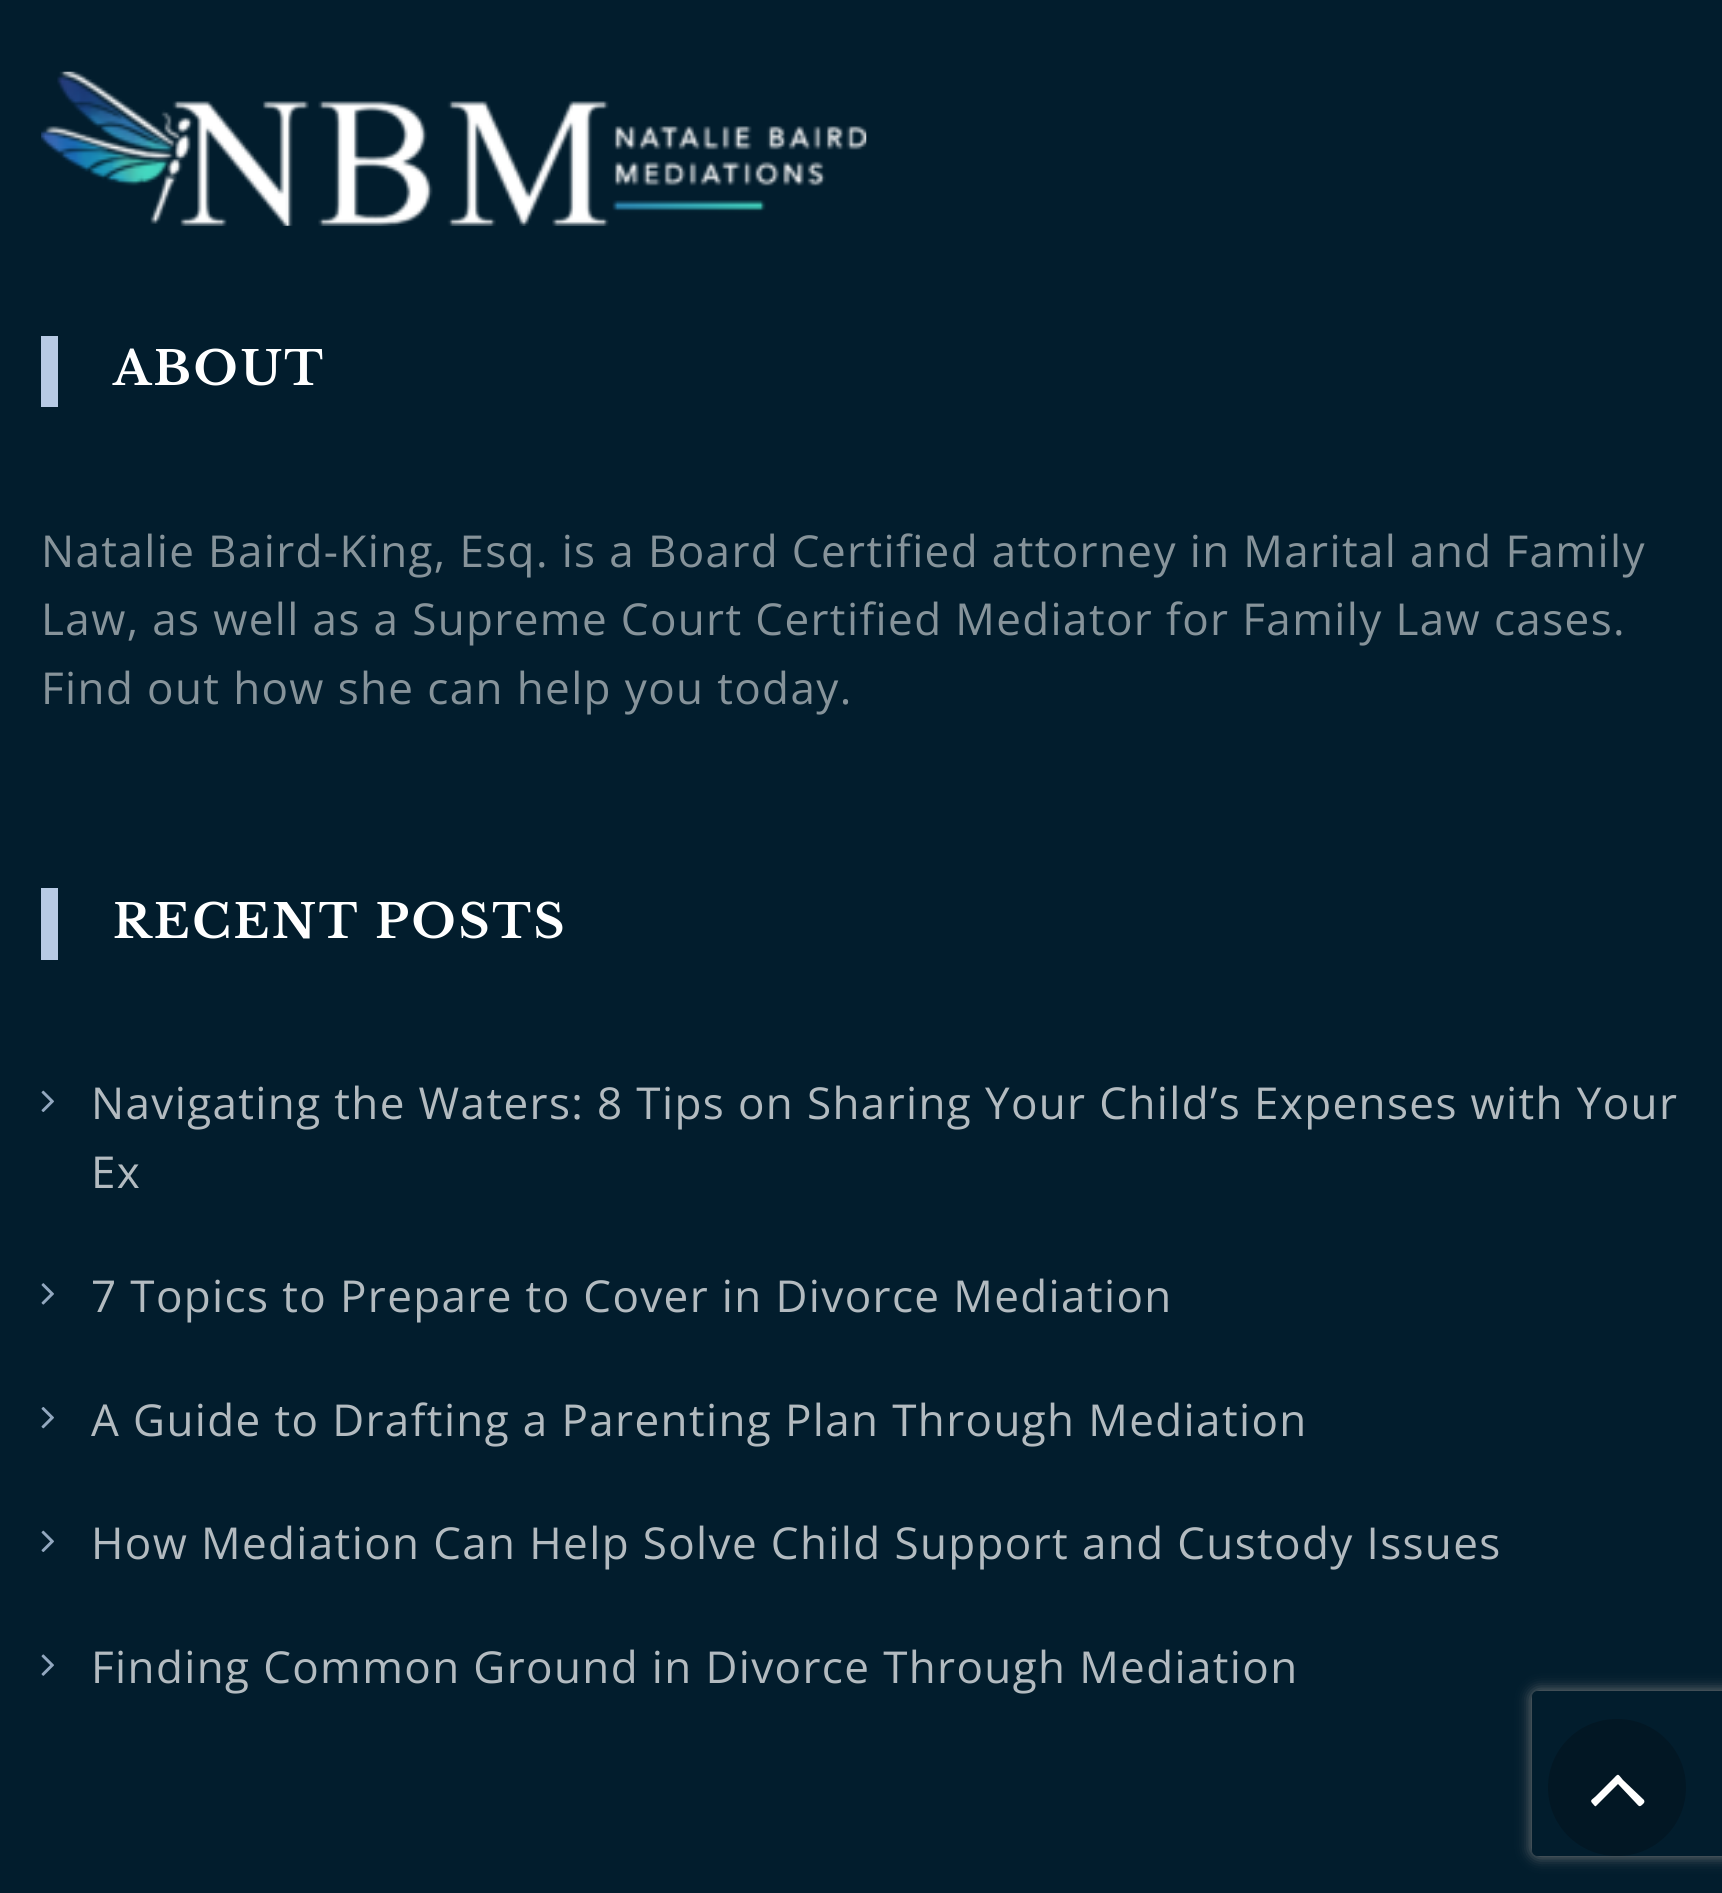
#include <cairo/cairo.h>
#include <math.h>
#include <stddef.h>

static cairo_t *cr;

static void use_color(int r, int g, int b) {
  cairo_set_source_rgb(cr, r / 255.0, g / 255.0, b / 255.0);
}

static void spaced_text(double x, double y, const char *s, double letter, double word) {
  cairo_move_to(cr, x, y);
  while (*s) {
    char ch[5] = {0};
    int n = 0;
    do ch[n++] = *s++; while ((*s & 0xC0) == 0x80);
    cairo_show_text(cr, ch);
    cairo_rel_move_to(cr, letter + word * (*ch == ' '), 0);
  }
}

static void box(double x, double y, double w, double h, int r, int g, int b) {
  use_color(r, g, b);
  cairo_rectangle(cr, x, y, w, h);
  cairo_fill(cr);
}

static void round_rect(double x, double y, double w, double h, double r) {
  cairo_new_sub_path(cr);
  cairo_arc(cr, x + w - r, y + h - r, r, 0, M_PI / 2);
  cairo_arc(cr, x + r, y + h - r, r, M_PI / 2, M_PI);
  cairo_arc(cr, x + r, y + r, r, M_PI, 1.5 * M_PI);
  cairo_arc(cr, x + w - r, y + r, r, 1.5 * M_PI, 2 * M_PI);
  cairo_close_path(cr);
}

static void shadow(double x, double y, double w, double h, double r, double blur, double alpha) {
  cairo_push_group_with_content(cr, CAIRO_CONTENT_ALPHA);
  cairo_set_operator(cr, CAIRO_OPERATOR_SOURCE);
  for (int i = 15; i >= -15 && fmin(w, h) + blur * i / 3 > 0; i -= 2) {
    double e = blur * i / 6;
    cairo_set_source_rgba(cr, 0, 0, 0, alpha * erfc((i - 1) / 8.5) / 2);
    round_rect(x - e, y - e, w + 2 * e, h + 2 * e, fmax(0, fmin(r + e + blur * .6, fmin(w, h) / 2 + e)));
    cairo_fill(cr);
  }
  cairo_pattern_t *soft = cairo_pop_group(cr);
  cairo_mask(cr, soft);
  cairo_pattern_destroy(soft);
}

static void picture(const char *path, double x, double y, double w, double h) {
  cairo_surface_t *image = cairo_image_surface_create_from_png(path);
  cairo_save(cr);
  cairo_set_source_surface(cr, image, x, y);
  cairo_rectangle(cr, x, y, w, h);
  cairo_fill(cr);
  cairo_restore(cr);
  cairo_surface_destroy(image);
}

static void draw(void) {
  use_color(2, 29, 45);
  cairo_paint(cr);
  picture("img_01.png", 41, 71, 826, 155);
  box(41, 336, 17, 71, 183, 202, 228);
  box(41, 888, 17, 72, 183, 202, 228);
  picture("img_02.png", 41, 1090, 13, 22);
  picture("img_03.png", 41, 1283, 13, 22);
  picture("img_04.png", 41, 1407, 13, 22);
  picture("img_02.png", 41, 1530, 13, 22);
  picture("img_05.png", 41, 1654, 13, 22);
  cairo_save(cr);
  cairo_set_fill_rule(cr, CAIRO_FILL_RULE_EVEN_ODD);
  cairo_new_path(cr);
  cairo_move_to(cr, 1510, 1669);
  cairo_line_to(cr, 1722, 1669);
  cairo_line_to(cr, 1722, 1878);
  cairo_line_to(cr, 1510, 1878);
  cairo_close_path(cr);
  cairo_move_to(cr, 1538, 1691);
  cairo_line_to(cr, 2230, 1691);
  cairo_curve_to(cr, 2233.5, 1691, 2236, 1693.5, 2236, 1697);
  cairo_line_to(cr, 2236, 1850);
  cairo_curve_to(cr, 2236, 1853.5, 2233.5, 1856, 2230, 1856);
  cairo_line_to(cr, 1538, 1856);
  cairo_curve_to(cr, 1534.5, 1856, 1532, 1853.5, 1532, 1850);
  cairo_line_to(cr, 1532, 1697);
  cairo_curve_to(cr, 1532, 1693.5, 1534.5, 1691, 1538, 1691);
  cairo_close_path(cr);
  cairo_clip(cr);
  use_color(128, 128, 128);
  shadow(1532, 1691, 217, 165, 6, 7, 1);
  cairo_restore(cr);
  use_color(2, 23, 36);
  round_rect(1548, 1719, 138, 137, 68.5);
  cairo_fill(cr);
  use_color(255, 255, 255);
  cairo_new_path(cr);
  cairo_move_to(cr, 1644, 1800);
  cairo_curve_to(cr, 1645, 1802, 1644, 1803, 1643, 1804);
  cairo_curve_to(cr, 1639, 1808, 1639, 1806, 1635, 1802);
  cairo_line_to(cr, 1618, 1784);
  cairo_line_to(cr, 1596, 1806);
  cairo_curve_to(cr, 1595, 1807, 1594, 1805, 1593, 1804);
  cairo_curve_to(cr, 1589, 1800, 1592, 1800, 1596, 1796);
  cairo_line_to(cr, 1612, 1780);
  cairo_curve_to(cr, 1619, 1773, 1617, 1773, 1623, 1780);
  cairo_close_path(cr);
  cairo_fill(cr);
  cairo_select_font_face(cr, "Libre Baskerville", CAIRO_FONT_SLANT_NORMAL, CAIRO_FONT_WEIGHT_BOLD);
  cairo_set_font_size(cr, 46.75);
  spaced_text(113, 385, "ABOUT", 2.75, 0);
  cairo_select_font_face(cr, "Open Sans", CAIRO_FONT_SLANT_NORMAL, CAIRO_FONT_WEIGHT_NORMAL);
  cairo_set_font_size(cr, 44);
  use_color(134, 147, 154);
  spaced_text(41, 567, "Natalie Baird-King, Esq. is a Board Certified attorney in Marital and Family", 1.38, 0);
  spaced_text(41, 635, "Law, as well as a Supreme Court Certified Mediator for Family Law cases.", 1.38, 0);
  spaced_text(41, 704, "Find out how she can help you today.", 1.38, 0);
  cairo_select_font_face(cr, "Libre Baskerville", CAIRO_FONT_SLANT_NORMAL, CAIRO_FONT_WEIGHT_BOLD);
  cairo_set_font_size(cr, 46.75);
  use_color(255, 255, 255);
  spaced_text(113, 938, "RECENT POSTS", 2.75, 0);
  cairo_select_font_face(cr, "Open Sans", CAIRO_FONT_SLANT_NORMAL, CAIRO_FONT_WEIGHT_NORMAL);
  cairo_set_font_size(cr, 44);
  use_color(179, 187, 192);
  spaced_text(91, 1119, "Navigating the Waters: 8 Tips on Sharing Your Child’s Expenses with Your", 1.38, 0);
  spaced_text(91, 1188, "Ex", 1.38, 0);
  spaced_text(91, 1312, "7 Topics to Prepare to Cover in Divorce Mediation", 1.38, 0);
  spaced_text(91, 1436, "A Guide to Drafting a Parenting Plan Through Mediation", 1.38, 0);
  spaced_text(91, 1559, "How Mediation Can Help Solve Child Support and Custody Issues", 1.38, 0);
  spaced_text(91, 1683, "Finding Common Ground in Divorce Through Mediation", 1.38, 0);
}

int main(void) {
  cairo_surface_t *surface = cairo_image_surface_create(CAIRO_FORMAT_RGB24, 1722, 1893);
  cr = cairo_create(surface);
  cairo_font_options_t *options = cairo_font_options_create();
  cairo_font_options_set_hint_metrics(options, CAIRO_HINT_METRICS_OFF);
  cairo_font_options_set_hint_style(options, CAIRO_HINT_STYLE_NONE);
  cairo_set_font_options(cr, options);
  cairo_set_miter_limit(cr, 4);
  draw();
  cairo_surface_write_to_png(surface, "out.png");
  cairo_font_options_destroy(options);
  cairo_destroy(cr);
  cairo_surface_destroy(surface);
  return 0;
}
